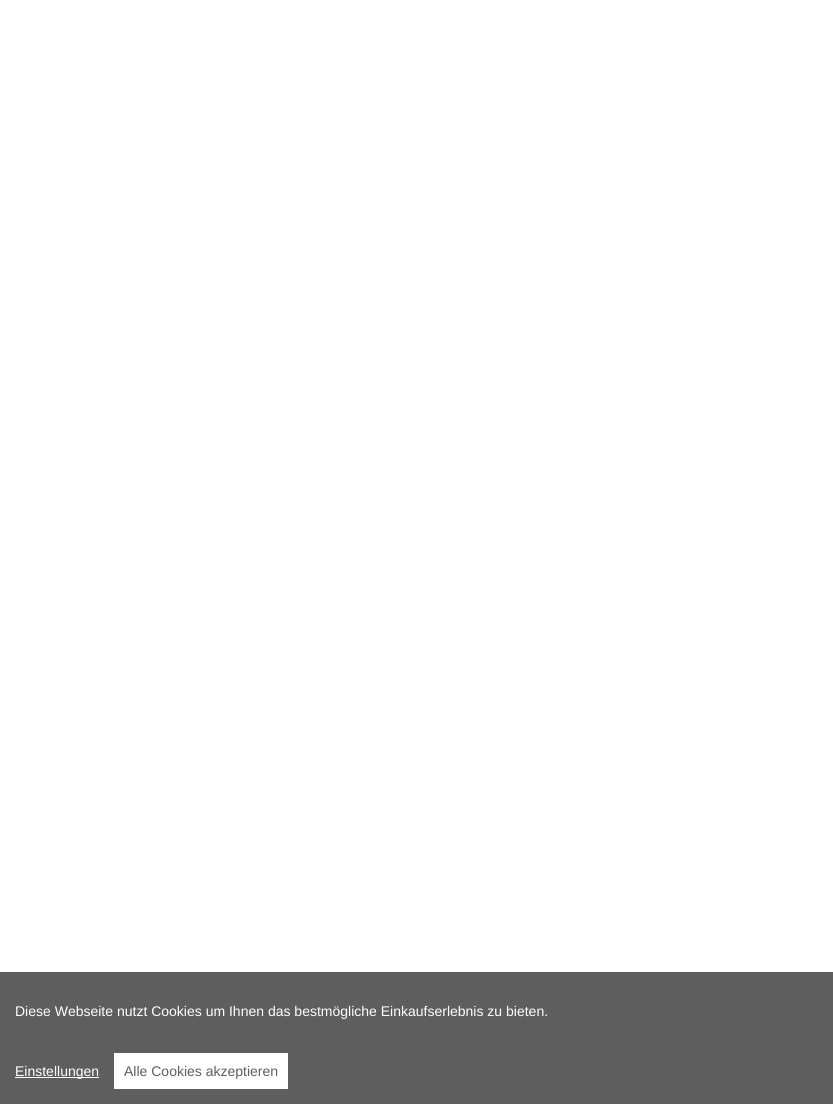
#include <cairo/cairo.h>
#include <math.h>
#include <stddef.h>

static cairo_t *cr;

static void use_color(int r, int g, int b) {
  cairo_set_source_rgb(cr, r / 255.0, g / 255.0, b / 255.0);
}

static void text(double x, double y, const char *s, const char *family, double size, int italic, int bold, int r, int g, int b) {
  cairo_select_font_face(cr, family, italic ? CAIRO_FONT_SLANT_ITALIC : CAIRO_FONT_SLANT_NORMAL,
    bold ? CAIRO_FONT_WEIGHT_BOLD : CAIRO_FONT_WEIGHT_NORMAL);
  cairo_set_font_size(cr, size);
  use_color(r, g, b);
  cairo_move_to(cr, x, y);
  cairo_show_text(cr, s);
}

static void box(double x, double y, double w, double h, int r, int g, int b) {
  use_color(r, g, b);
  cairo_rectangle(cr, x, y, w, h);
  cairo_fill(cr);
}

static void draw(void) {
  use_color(255, 255, 255);
  cairo_paint(cr);
  box(0, 972, 833, 132, 94, 94, 94);
  box(15, 1077, 84, 1, 255, 255, 255);
  box(114, 1053, 174, 36, 255, 255, 255);
  text(15, 1016, "Diese Webseite nutzt Cookies um Ihnen das bestmögliche Einkaufserlebnis zu bieten.", "Liberation Sans", 14, 0, 0, 255, 255, 255);
  text(15, 1076, "Einstellungen", "Liberation Sans", 14, 0, 0, 255, 255, 255);
  text(124, 1076, "Alle Cookies akzeptieren", "Liberation Sans", 14, 0, 0, 94, 94, 94);
}

int main(void) {
  cairo_surface_t *surface = cairo_image_surface_create(CAIRO_FORMAT_RGB24, 833, 1104);
  cr = cairo_create(surface);
  cairo_font_options_t *options = cairo_font_options_create();
  cairo_font_options_set_hint_metrics(options, CAIRO_HINT_METRICS_OFF);
  cairo_font_options_set_hint_style(options, CAIRO_HINT_STYLE_NONE);
  cairo_set_font_options(cr, options);
  cairo_set_miter_limit(cr, 4);
  draw();
  cairo_surface_write_to_png(surface, "out.png");
  cairo_font_options_destroy(options);
  cairo_destroy(cr);
  cairo_surface_destroy(surface);
  return 0;
}
